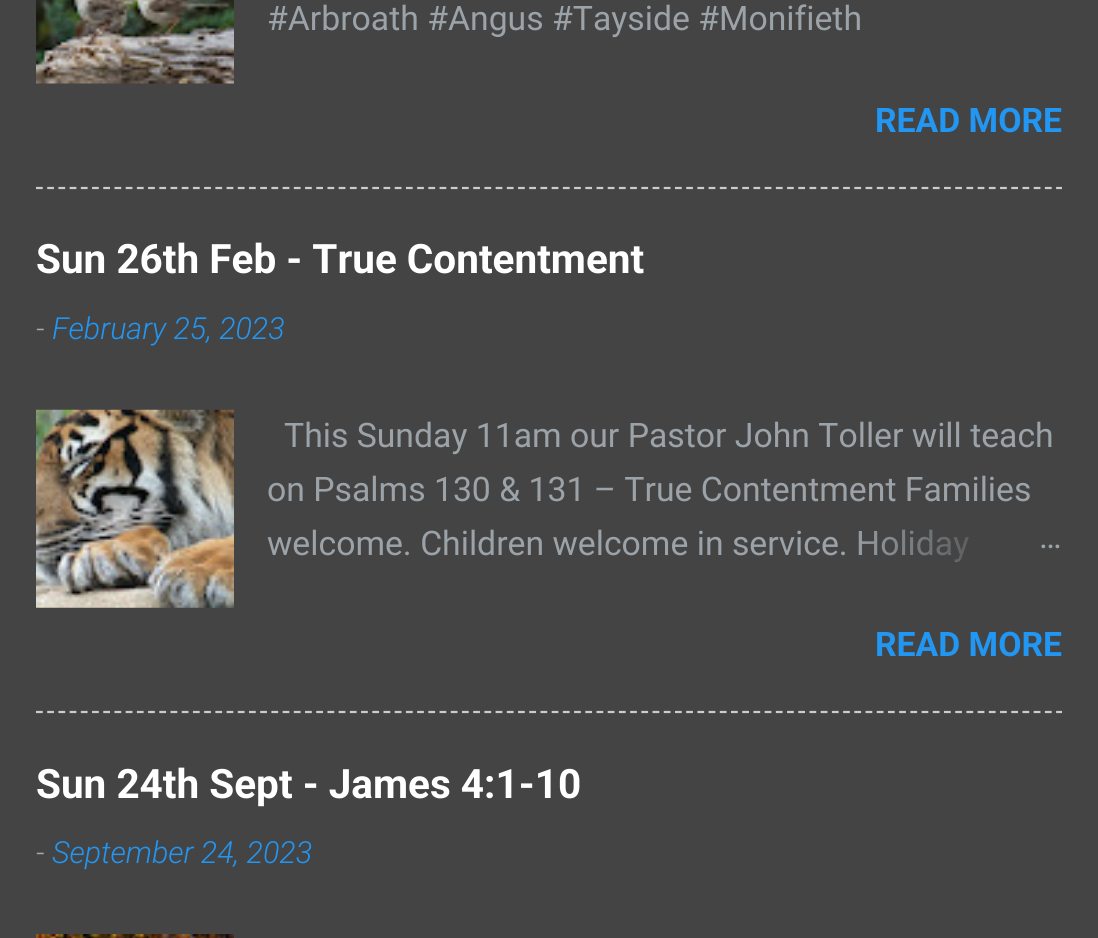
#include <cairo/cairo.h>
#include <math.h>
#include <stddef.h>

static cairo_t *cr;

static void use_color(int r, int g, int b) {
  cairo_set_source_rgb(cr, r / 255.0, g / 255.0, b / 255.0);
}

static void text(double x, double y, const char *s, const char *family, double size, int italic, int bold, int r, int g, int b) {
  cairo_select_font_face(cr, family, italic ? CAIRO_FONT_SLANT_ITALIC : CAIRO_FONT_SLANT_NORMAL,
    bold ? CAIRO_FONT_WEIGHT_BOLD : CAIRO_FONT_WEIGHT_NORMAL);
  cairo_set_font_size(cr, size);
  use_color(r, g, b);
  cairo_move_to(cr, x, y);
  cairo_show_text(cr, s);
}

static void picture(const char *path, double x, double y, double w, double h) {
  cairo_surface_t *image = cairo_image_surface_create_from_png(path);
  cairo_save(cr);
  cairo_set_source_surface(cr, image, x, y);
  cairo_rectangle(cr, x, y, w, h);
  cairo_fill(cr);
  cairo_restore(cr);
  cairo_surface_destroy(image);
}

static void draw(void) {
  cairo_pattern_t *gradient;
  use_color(68, 68, 68);
  cairo_paint(cr);
  picture("img_01.png", 36, 0, 198, 84);
  cairo_new_path(cr);
  cairo_move_to(cr, 36, 188);
  cairo_line_to(cr, 1062, 188);
  use_color(204, 204, 204);
  cairo_set_line_width(cr, 2.2);
  cairo_set_dash(cr, (double[]){6.75, 4.46}, 2, 0);
  cairo_stroke(cr);
  picture("img_02.png", 36, 409, 198, 199);
  cairo_new_path(cr);
  cairo_move_to(cr, 36, 712);
  cairo_line_to(cr, 1062, 712);
  cairo_stroke(cr);
  picture("img_03.png", 36, 934, 198, 4);
  text(267, 30, "#Arbroath #Angus #Tayside #Monifieth", "Roboto", 33.75, 0, 0, 155, 162, 168);
  text(875, 132, "READ MORE", "Roboto", 33.75, 0, 1, 33, 150, 243);
  text(36, 273, "Sun 26th Feb - True Contentment", "Roboto", 40.5, 0, 1, 255, 255, 255);
  text(36, 339, "-", "Roboto Light", 30.4, 1, 0, 169, 169, 169);
  text(52, 339, "February 25, 2023", "Roboto Light", 30.4, 1, 0, 33, 150, 243);
  text(284, 447, "This Sunday 11am our Pastor John Toller will teach", "Roboto", 33.75, 0, 0, 155, 162, 168);
  text(267, 501, "on Psalms 130 & 131 – True Contentment Families", "Roboto", 33.75, 0, 0, 155, 162, 168);
  text(267, 555, "welcome. Children welcome in service. Holiday", "Roboto", 33.75, 0, 0, 155, 162, 168);
  gradient = cairo_pattern_create_linear(1062, 545, 846, 545);
  cairo_pattern_add_color_stop_rgba(gradient, 0, 0.267, 0.267, 0.267, 1);
  cairo_pattern_add_color_stop_rgba(gradient, 0.2, 0.267, 0.267, 0.267, 1);
  cairo_pattern_add_color_stop_rgba(gradient, 1, 0.267, 0.267, 0.267, 0);
  cairo_set_source(cr, gradient);
  cairo_pattern_destroy(gradient);
  cairo_rectangle(cr, 859, 529, 110, 34);
  cairo_fill(cr);
  text(1039, 548, "…", "Roboto", 33.75, 0, 0, 155, 162, 168);
  text(875, 656, "READ MORE", "Roboto", 33.75, 0, 1, 33, 150, 243);
  text(36, 798, "Sun 24th Sept - James 4:1-10", "Roboto", 40.5, 0, 1, 255, 255, 255);
  text(36, 863, "-", "Roboto Light", 30.4, 1, 0, 169, 169, 169);
  text(52, 863, "September 24, 2023", "Roboto Light", 30.4, 1, 0, 33, 150, 243);
}

int main(void) {
  cairo_surface_t *surface = cairo_image_surface_create(CAIRO_FORMAT_RGB24, 1098, 938);
  cr = cairo_create(surface);
  cairo_font_options_t *options = cairo_font_options_create();
  cairo_font_options_set_hint_metrics(options, CAIRO_HINT_METRICS_OFF);
  cairo_font_options_set_hint_style(options, CAIRO_HINT_STYLE_NONE);
  cairo_set_font_options(cr, options);
  cairo_set_miter_limit(cr, 4);
  draw();
  cairo_surface_write_to_png(surface, "out.png");
  cairo_font_options_destroy(options);
  cairo_destroy(cr);
  cairo_surface_destroy(surface);
  return 0;
}
